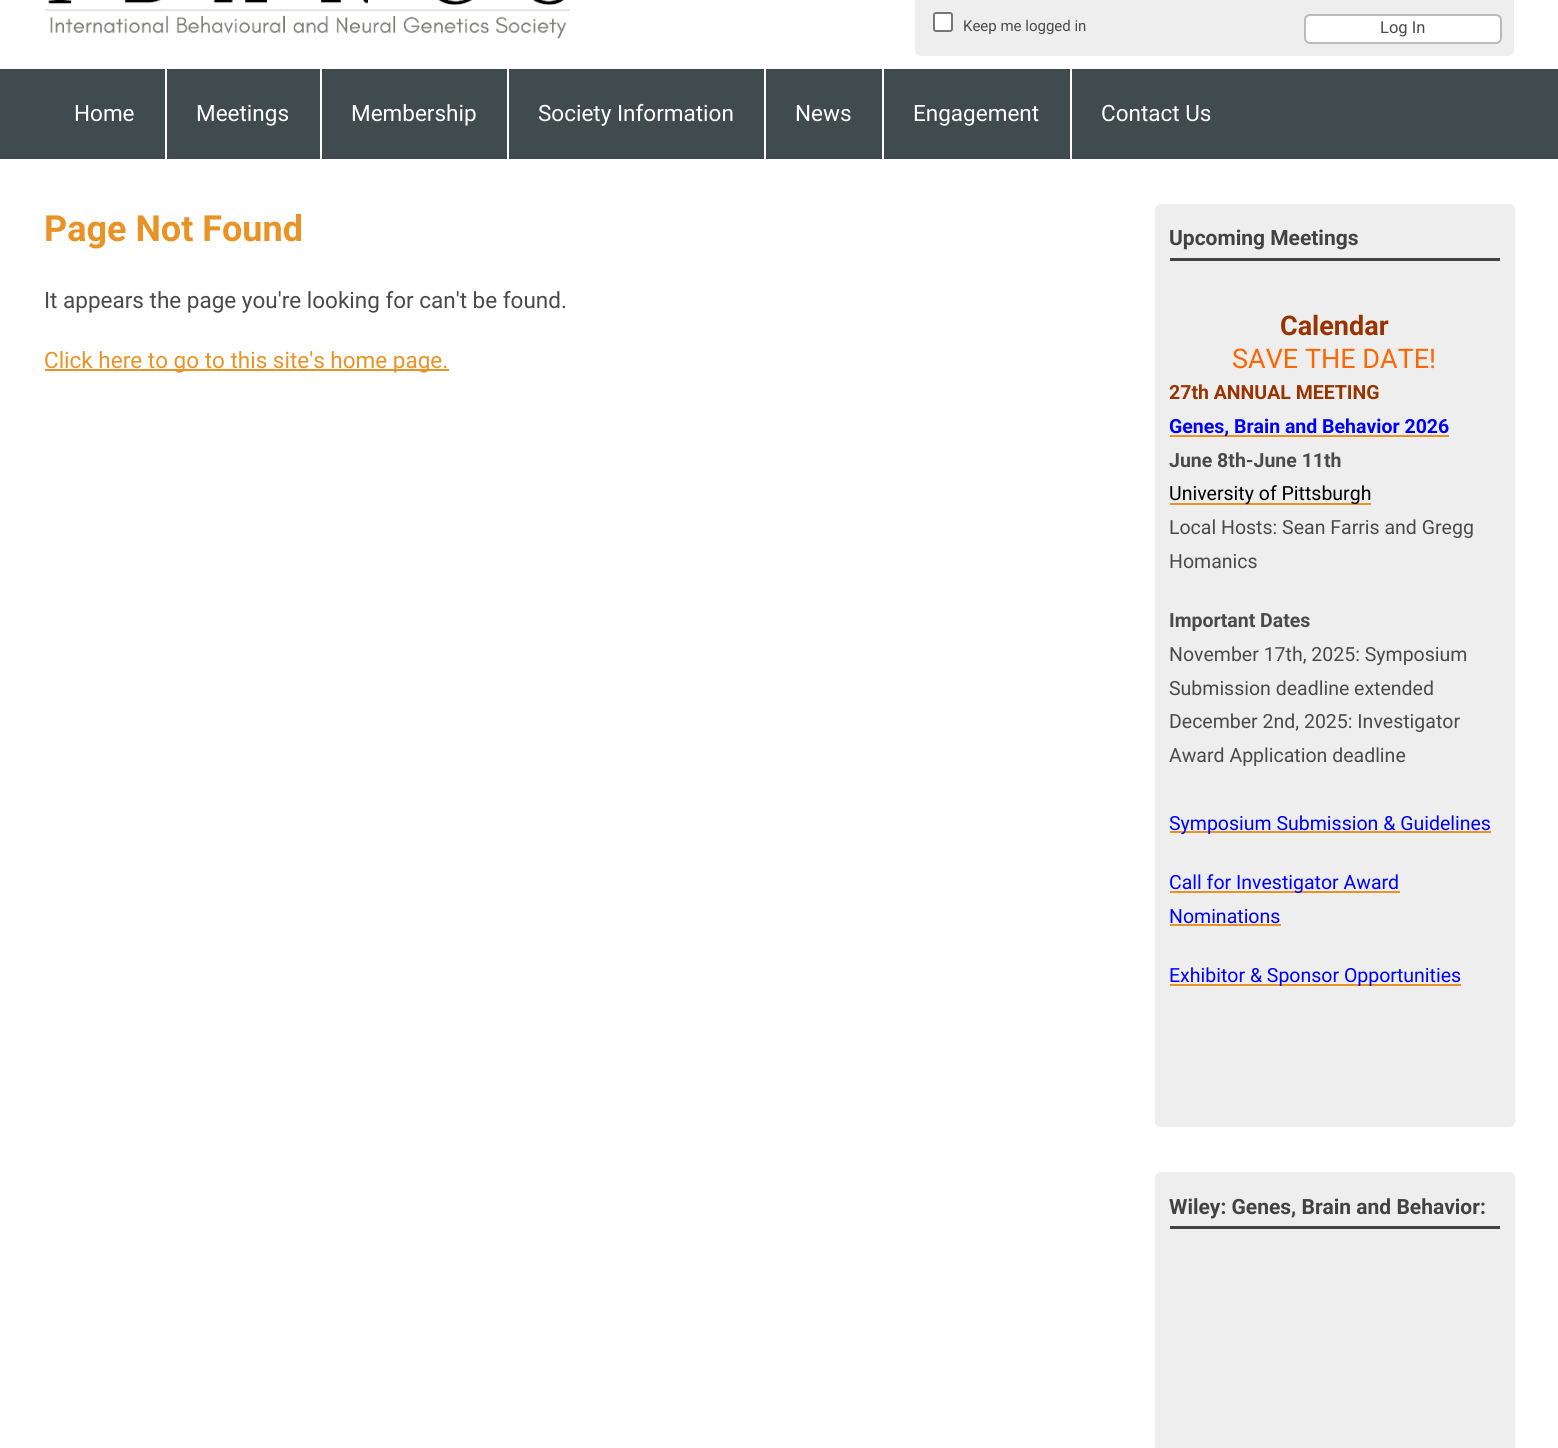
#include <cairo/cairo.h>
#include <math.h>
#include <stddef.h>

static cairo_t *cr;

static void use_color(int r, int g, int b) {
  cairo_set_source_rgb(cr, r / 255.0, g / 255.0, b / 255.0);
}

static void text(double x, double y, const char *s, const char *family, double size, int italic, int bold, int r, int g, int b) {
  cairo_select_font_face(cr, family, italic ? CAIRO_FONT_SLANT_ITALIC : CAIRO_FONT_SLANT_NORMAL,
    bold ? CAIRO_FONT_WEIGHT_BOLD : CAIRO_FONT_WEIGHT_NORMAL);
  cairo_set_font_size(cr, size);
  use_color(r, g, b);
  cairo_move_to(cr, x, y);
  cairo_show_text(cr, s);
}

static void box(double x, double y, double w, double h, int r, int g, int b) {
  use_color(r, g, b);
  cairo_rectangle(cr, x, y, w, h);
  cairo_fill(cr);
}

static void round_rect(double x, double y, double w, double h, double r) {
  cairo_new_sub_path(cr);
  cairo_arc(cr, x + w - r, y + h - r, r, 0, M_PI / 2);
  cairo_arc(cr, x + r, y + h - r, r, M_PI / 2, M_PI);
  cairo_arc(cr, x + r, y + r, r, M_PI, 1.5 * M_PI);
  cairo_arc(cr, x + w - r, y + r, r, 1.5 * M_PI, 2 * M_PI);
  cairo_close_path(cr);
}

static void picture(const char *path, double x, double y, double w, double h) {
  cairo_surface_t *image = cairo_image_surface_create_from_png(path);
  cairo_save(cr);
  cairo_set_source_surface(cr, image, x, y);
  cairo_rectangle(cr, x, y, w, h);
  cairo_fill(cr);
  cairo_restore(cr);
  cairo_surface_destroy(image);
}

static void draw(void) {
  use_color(255, 255, 255);
  cairo_paint(cr);
  picture("img_01.png", 45, 0, 525, 39);
  use_color(238, 238, 238);
  round_rect(915, -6, 599, 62, 6);
  cairo_fill(cr);
  use_color(255, 255, 255);
  round_rect(934, 13, 18, 18, 2);
  cairo_fill_preserve(cr);
  use_color(118, 118, 118);
  cairo_stroke(cr);
  use_color(255, 255, 255);
  round_rect(1305, 15, 196, 28, 5);
  cairo_fill_preserve(cr);
  use_color(187, 187, 187);
  cairo_stroke(cr);
  box(0, 69, 1558, 90, 64, 75, 77);
  box(165, 69, 2, 90, 255, 255, 255);
  box(320, 69, 2, 90, 255, 255, 255);
  box(507, 69, 2, 90, 255, 255, 255);
  box(764, 69, 2, 90, 255, 255, 255);
  box(882, 69, 2, 90, 255, 255, 255);
  box(1070, 69, 2, 90, 255, 255, 255);
  box(45, 369, 404, 2, 233, 147, 38);
  use_color(238, 238, 238);
  round_rect(1155, 204, 360, 923, 6);
  cairo_fill(cr);
  box(1170, 258, 330, 3, 66, 66, 66);
  box(1170, 435, 279, 2, 233, 147, 38);
  box(1170, 503, 201, 2, 233, 147, 38);
  box(1170, 831, 321, 2, 233, 147, 38);
  box(1170, 891, 230, 2, 233, 147, 38);
  box(1170, 924, 111, 2, 233, 147, 38);
  box(1170, 984, 291, 2, 233, 147, 38);
  use_color(238, 238, 238);
  round_rect(1155, 1172, 360, 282, 6);
  cairo_fill(cr);
  box(1170, 1226, 330, 3, 66, 66, 66);
  text(963, 31, "Keep me logged in", "Roboto", 15, 0, 0, 74, 74, 74);
  text(1380, 33, "Log In", "Roboto", 16.5, 0, 0, 74, 74, 74);
  text(74, 121, "Home", "Roboto", 22.5, 0, 0, 255, 255, 255);
  text(196, 121, "Meetings", "Roboto", 22.5, 0, 0, 255, 255, 255);
  text(351, 121, "Membership", "Roboto", 22.5, 0, 0, 255, 255, 255);
  text(538, 121, "Society Information", "Roboto", 22.5, 0, 0, 255, 255, 255);
  text(795, 121, "News", "Roboto", 22.5, 0, 0, 255, 255, 255);
  text(913, 121, "Engagement", "Roboto", 22.5, 0, 0, 255, 255, 255);
  text(1101, 121, "Contact Us", "Roboto", 22.5, 0, 0, 255, 255, 255);
  text(44, 241, "Page Not Found", "Roboto", 36, 0, 1, 233, 147, 38);
  text(44, 308, "It appears the page you're looking for can't be found.", "Roboto", 22.5, 0, 0, 74, 74, 74);
  text(44, 368, "Click here to go to this site's home page.", "Roboto", 22.5, 0, 0, 233, 147, 38);
  text(1169, 245, "Upcoming Meetings", "Roboto", 21, 0, 1, 66, 66, 66);
  text(1280, 335, "Calendar", "Roboto", 27, 0, 1, 153, 51, 0);
  text(1232, 368, "SAVE THE DATE!", "Roboto", 27, 0, 0, 255, 102, 0);
  text(1169, 399, "27th ANNUAL MEETING", "Roboto", 19.5, 0, 1, 153, 51, 0);
  text(1169, 433, "Genes, Brain and Behavior 2026", "Roboto", 19.5, 0, 1, 0, 0, 255);
  text(1169, 467, "June 8th-June 11th", "Roboto", 19.5, 0, 1, 74, 74, 74);
  text(1169, 500, "University of Pittsburgh", "Roboto", 19.5, 0, 0, 0, 0, 0);
  text(1169, 534, "Local Hosts: Sean Farris and Gregg", "Roboto", 19.5, 0, 0, 74, 74, 74);
  text(1169, 568, "Homanics", "Roboto", 19.5, 0, 0, 74, 74, 74);
  text(1169, 627, "Important Dates", "Roboto", 19.5, 0, 1, 74, 74, 74);
  text(1169, 661, "November 17th, 2025: Symposium", "Roboto", 19.5, 0, 0, 74, 74, 74);
  text(1169, 695, "Submission deadline extended", "Roboto", 19.5, 0, 0, 74, 74, 74);
  text(1169, 728, "December 2nd, 2025: Investigator", "Roboto", 19.5, 0, 0, 74, 74, 74);
  text(1169, 762, "Award Application deadline", "Roboto", 19.5, 0, 0, 74, 74, 74);
  text(1169, 830, "Symposium Submission & Guidelines", "Roboto", 19.5, 0, 0, 0, 0, 255);
  text(1169, 889, "Call for Investigator Award", "Roboto", 19.5, 0, 0, 0, 0, 255);
  text(1169, 923, "Nominations", "Roboto", 19.5, 0, 0, 0, 0, 255);
  text(1169, 982, "Exhibitor & Sponsor Opportunities", "Roboto", 19.5, 0, 0, 0, 0, 255);
  text(1169, 1214, "Wiley: Genes, Brain and Behavior:", "Roboto", 21, 0, 1, 66, 66, 66);
}

int main(void) {
  cairo_surface_t *surface = cairo_image_surface_create(CAIRO_FORMAT_RGB24, 1558, 1448);
  cr = cairo_create(surface);
  cairo_font_options_t *options = cairo_font_options_create();
  cairo_font_options_set_hint_metrics(options, CAIRO_HINT_METRICS_OFF);
  cairo_font_options_set_hint_style(options, CAIRO_HINT_STYLE_NONE);
  cairo_set_font_options(cr, options);
  cairo_set_miter_limit(cr, 4);
  draw();
  cairo_surface_write_to_png(surface, "out.png");
  cairo_font_options_destroy(options);
  cairo_destroy(cr);
  cairo_surface_destroy(surface);
  return 0;
}
